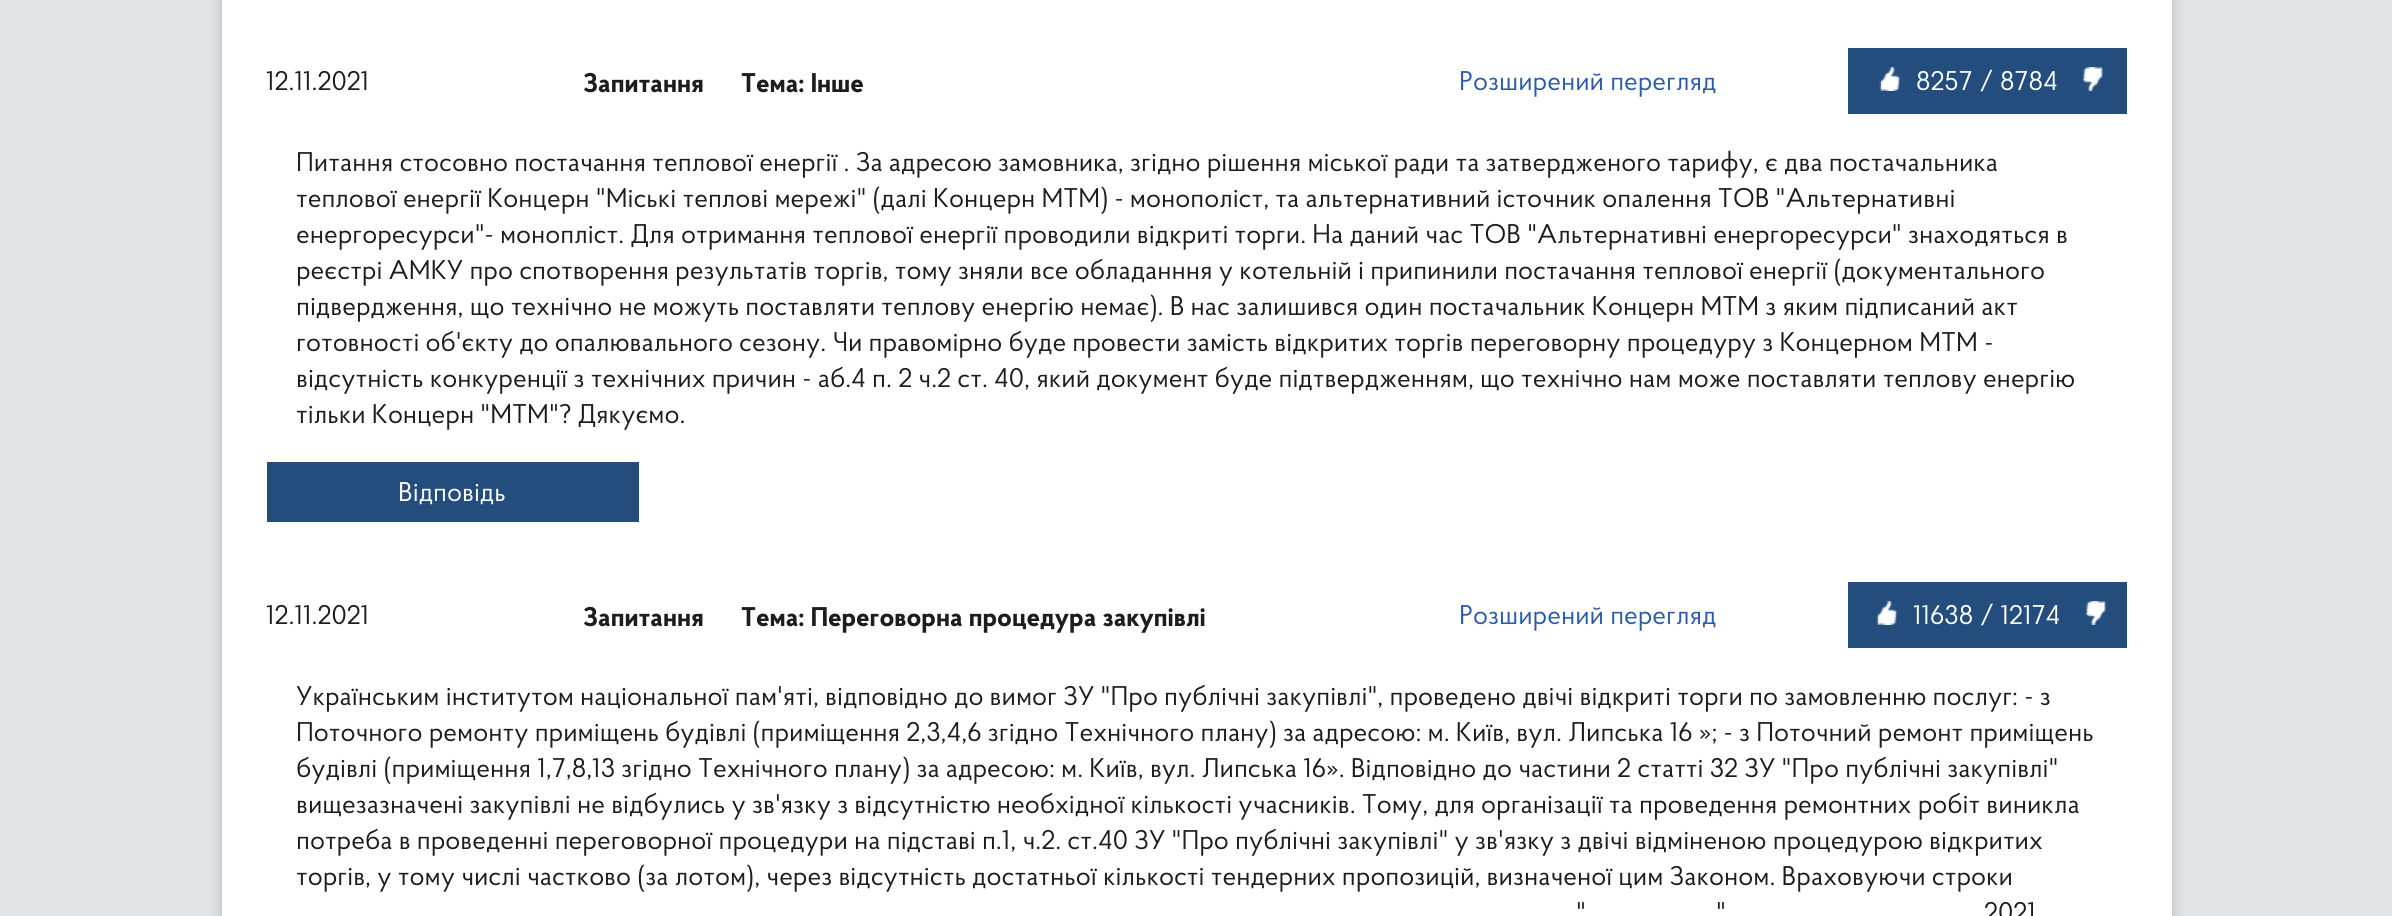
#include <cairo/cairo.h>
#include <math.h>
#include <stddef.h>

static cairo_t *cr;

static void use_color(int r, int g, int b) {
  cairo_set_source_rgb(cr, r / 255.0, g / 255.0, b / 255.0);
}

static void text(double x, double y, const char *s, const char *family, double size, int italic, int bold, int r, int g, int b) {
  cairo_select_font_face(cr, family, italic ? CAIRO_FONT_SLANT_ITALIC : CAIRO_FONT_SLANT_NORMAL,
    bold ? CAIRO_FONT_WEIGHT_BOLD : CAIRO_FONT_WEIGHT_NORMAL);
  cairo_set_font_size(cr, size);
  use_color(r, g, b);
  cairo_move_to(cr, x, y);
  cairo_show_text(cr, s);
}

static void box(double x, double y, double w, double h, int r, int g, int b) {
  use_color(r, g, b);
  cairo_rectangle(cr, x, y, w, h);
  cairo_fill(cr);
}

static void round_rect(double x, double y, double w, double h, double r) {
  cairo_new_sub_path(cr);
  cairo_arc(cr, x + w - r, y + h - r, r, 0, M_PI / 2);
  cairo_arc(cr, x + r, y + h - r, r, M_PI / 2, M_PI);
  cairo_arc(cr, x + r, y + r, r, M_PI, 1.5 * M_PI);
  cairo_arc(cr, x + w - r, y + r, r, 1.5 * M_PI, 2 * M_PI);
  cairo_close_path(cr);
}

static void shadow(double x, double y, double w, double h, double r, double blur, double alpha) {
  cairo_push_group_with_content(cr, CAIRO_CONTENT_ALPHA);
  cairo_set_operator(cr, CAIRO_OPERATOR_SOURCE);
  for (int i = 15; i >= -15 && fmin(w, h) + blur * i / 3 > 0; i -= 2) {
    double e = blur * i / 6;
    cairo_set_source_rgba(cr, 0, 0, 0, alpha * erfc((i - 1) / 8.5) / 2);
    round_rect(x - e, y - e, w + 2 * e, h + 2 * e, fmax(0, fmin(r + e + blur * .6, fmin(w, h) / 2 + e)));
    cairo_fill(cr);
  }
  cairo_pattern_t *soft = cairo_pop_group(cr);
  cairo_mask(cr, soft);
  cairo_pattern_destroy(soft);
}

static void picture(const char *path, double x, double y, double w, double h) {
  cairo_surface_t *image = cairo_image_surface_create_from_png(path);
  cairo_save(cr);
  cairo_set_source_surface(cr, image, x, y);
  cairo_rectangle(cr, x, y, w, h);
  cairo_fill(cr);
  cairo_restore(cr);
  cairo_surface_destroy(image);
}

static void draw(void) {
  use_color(222, 228, 231);
  cairo_paint(cr);
  use_color(0, 0, 0);
  shadow(222, -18, 1950, 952, 0, 6, 0.2);
  box(222, 0, 1950, 916, 255, 255, 255);
  box(1848, 48, 279, 66, 35, 77, 125);
  picture("img_01.png", 1879, 67, 22, 24);
  picture("img_02.png", 2082, 67, 21, 24);
  box(267, 462, 372, 60, 35, 77, 125);
  box(1848, 582, 279, 66, 35, 77, 125);
  picture("img_01.png", 1876, 601, 22, 24);
  picture("img_02.png", 2085, 601, 21, 24);
  text(266, 90, "12.11.2021", "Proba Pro", 27, 0, 0, 29, 29, 27);
  text(583, 92, "Запитання      Тема: Інше", "Proba Pro", 27, 0, 1, 29, 29, 27);
  text(1459, 90, "Розширений перегляд", "Proba Pro", 27, 0, 0, 45, 92, 166);
  text(1916, 90, "8257 / 8784", "Proba Pro", 27, 0, 0, 255, 255, 255);
  text(296, 171, "Питання стосовно постачання теплової енергії . За адресою замовника, згідно рішення міської ради та затвердженого тарифу, є два постачальника", "Proba Pro", 27, 0, 0, 29, 29, 27);
  text(296, 207, "теплової енергії Концерн \"Міські теплові мережі\" (далі Концерн МТМ) - монополіст, та альтернативний істочник опалення ТОВ \"Альтернативні", "Proba Pro", 27, 0, 0, 29, 29, 27);
  text(296, 243, "енергоресурси\"- монопліст. Для отримання теплової енергії проводили відкриті торги. На даний час ТОВ \"Альтернативні енергоресурси\" знаходяться в", "Proba Pro", 27, 0, 0, 29, 29, 27);
  text(296, 279, "реєстрі АМКУ про спотворення результатів торгів, тому зняли все обладанння у котельній і припинили постачання теплової енергії (документального", "Proba Pro", 27, 0, 0, 29, 29, 27);
  text(296, 315, "підвердження, що технічно не можуть поставляти теплову енергію немає). В нас залишився один постачальник Концерн МТМ з яким підписаний акт", "Proba Pro", 27, 0, 0, 29, 29, 27);
  text(296, 351, "готовності об'єкту до опалювального сезону. Чи правомірно буде провести замість відкритих торгів переговорну процедуру з Концерном МТМ -", "Proba Pro", 27, 0, 0, 29, 29, 27);
  text(296, 387, "відсутність конкуренції з технічних причин - аб.4 п. 2 ч.2 ст. 40, який документ буде підтвердженням, що технічно нам може поставляти теплову енергію", "Proba Pro", 27, 0, 0, 29, 29, 27);
  text(296, 423, "тільки Концерн \"МТМ\"? Дякуємо.", "Proba Pro", 27, 0, 0, 29, 29, 27);
  text(398, 501, "Відповідь", "Proba Pro", 27, 0, 0, 255, 255, 255);
  text(266, 624, "12.11.2021", "Proba Pro", 27, 0, 0, 29, 29, 27);
  text(583, 626, "Запитання      Тема: Переговорна процедура закупівлі", "Proba Pro", 27, 0, 1, 29, 29, 27);
  text(1459, 624, "Розширений перегляд", "Proba Pro", 27, 0, 0, 45, 92, 166);
  text(1913, 624, "11638 / 12174", "Proba Pro", 27, 0, 0, 255, 255, 255);
  text(296, 705, "Українським інститутом національної пам'яті, відповідно до вимог ЗУ \"Про публічні закупівлі\", проведено двічі відкриті торги по замовленню послуг: - з", "Proba Pro", 27, 0, 0, 29, 29, 27);
  text(296, 741, "Поточного ремонту приміщень будівлі (приміщення 2,3,4,6 згідно Технічного плану) за адресою: м. Київ, вул. Липська 16 »; - з Поточний ремонт приміщень", "Proba Pro", 27, 0, 0, 29, 29, 27);
  text(296, 777, "будівлі (приміщення 1,7,8,13 згідно Технічного плану) за адресою: м. Київ, вул. Липська 16». Відповідно до частини 2 статті 32 ЗУ \"Про публічні закупівлі\"", "Proba Pro", 27, 0, 0, 29, 29, 27);
  text(296, 813, "вищезазначені закупівлі не відбулись у зв'язку з відсутністю необхідної кількості учасників. Тому, для організації та проведення ремонтних робіт виникла", "Proba Pro", 27, 0, 0, 29, 29, 27);
  text(296, 849, "потреба в проведенні переговорної процедури на підставі п.1, ч.2. ст.40 ЗУ \"Про публічні закупівлі\" у зв'язку з двічі відміненою процедурою відкритих", "Proba Pro", 27, 0, 0, 29, 29, 27);
  text(296, 885, "торгів, у тому числі частково (за лотом), через відсутність достатньої кількості тендерних пропозицій, визначеної цим Законом. Враховуючи строки", "Proba Pro", 27, 0, 0, 29, 29, 27);
  text(1576, 921, "\"", "Proba Pro", 27, 0, 0, 29, 29, 27);
  text(1716, 921, "\"", "Proba Pro", 27, 0, 0, 29, 29, 27);
  text(1984, 921, "2021", "Proba Pro", 27, 0, 0, 29, 29, 27);
}

int main(void) {
  cairo_surface_t *surface = cairo_image_surface_create(CAIRO_FORMAT_RGB24, 2392, 916);
  cr = cairo_create(surface);
  cairo_font_options_t *options = cairo_font_options_create();
  cairo_font_options_set_hint_metrics(options, CAIRO_HINT_METRICS_OFF);
  cairo_font_options_set_hint_style(options, CAIRO_HINT_STYLE_NONE);
  cairo_set_font_options(cr, options);
  cairo_set_miter_limit(cr, 4);
  draw();
  cairo_surface_write_to_png(surface, "out.png");
  cairo_font_options_destroy(options);
  cairo_destroy(cr);
  cairo_surface_destroy(surface);
  return 0;
}
